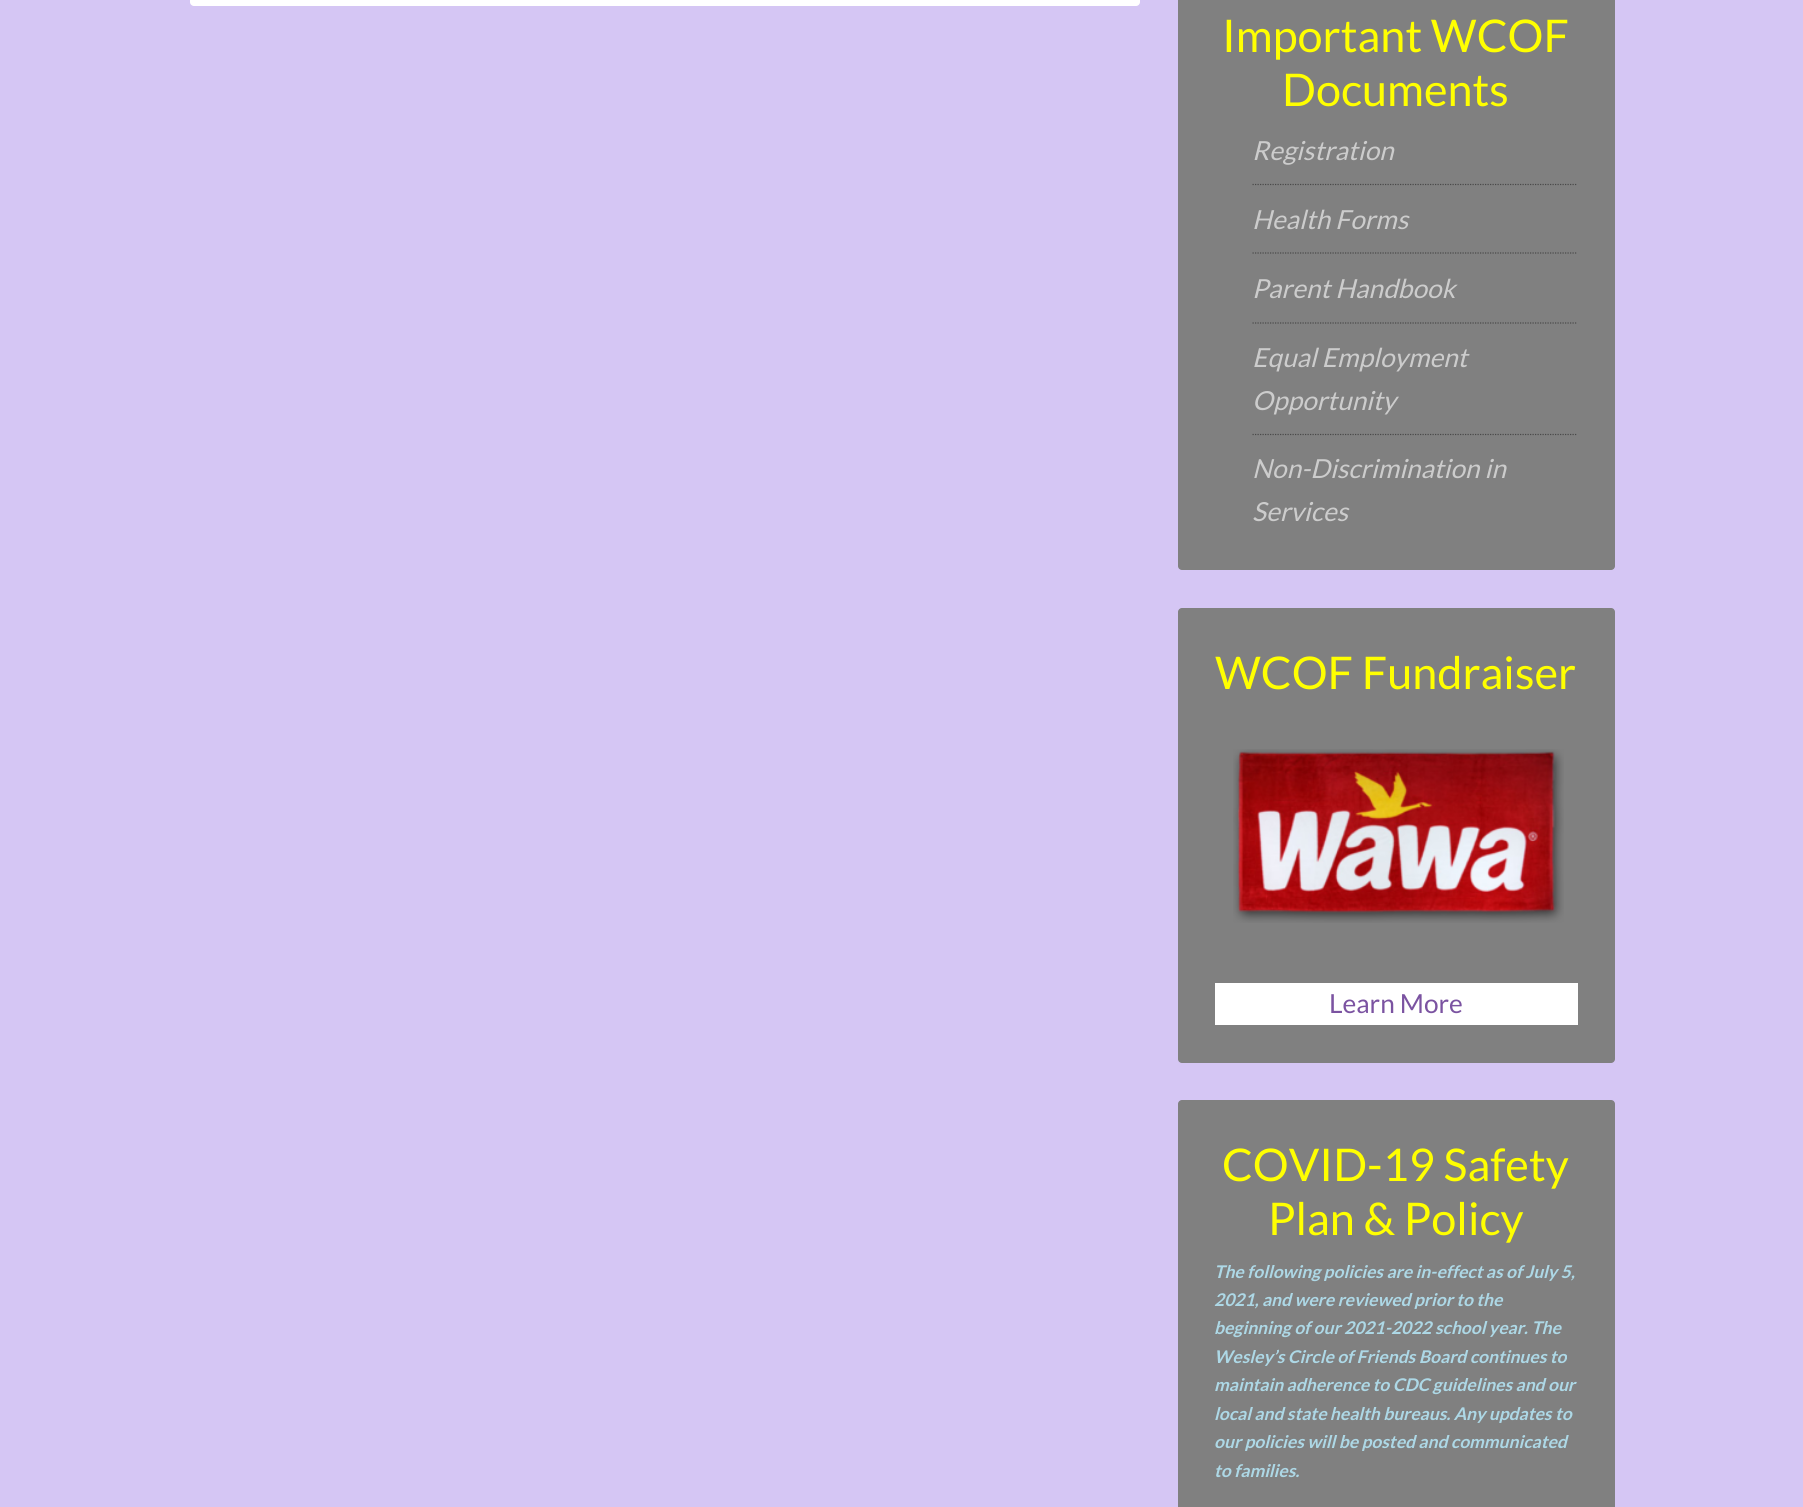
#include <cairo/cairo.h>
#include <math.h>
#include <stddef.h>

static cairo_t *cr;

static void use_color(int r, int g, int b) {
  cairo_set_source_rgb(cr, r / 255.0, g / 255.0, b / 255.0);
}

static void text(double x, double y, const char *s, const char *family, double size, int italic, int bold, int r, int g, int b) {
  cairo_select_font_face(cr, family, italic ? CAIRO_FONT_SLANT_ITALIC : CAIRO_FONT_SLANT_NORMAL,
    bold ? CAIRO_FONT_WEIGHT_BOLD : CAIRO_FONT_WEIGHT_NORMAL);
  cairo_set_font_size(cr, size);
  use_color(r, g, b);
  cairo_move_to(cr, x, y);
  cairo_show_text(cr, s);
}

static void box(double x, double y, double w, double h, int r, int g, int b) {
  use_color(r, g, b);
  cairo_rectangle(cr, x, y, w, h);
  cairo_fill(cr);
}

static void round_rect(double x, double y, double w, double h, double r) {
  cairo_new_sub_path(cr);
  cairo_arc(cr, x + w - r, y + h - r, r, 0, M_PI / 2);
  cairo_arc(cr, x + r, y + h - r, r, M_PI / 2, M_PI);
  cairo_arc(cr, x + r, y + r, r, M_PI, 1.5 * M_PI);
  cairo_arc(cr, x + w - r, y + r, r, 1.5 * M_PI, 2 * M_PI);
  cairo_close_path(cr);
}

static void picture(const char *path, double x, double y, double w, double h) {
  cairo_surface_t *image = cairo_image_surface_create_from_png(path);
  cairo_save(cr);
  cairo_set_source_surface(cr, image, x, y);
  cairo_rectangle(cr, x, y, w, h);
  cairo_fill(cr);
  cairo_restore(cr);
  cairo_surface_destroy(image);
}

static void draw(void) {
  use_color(213, 198, 244);
  cairo_paint(cr);
  use_color(255, 255, 255);
  round_rect(190, -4, 950, 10, 4);
  cairo_fill(cr);
  use_color(128, 128, 128);
  round_rect(1178, -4, 437, 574, 4);
  cairo_fill(cr);
  cairo_new_path(cr);
  cairo_move_to(cr, 1252.5, 184.5);
  cairo_line_to(cr, 1577.5, 184.5);
  use_color(73, 73, 73);
  cairo_set_line_width(cr, 1.2);
  cairo_set_dash(cr, (double[]){1.25, 1.25}, 2, 0);
  cairo_stroke(cr);
  cairo_new_path(cr);
  cairo_move_to(cr, 1252.5, 253);
  cairo_line_to(cr, 1577.5, 253);
  cairo_stroke(cr);
  cairo_new_path(cr);
  cairo_move_to(cr, 1252.5, 323);
  cairo_line_to(cr, 1577.5, 323);
  cairo_stroke(cr);
  cairo_new_path(cr);
  cairo_move_to(cr, 1252.5, 434.5);
  cairo_line_to(cr, 1577.5, 434.5);
  cairo_stroke(cr);
  use_color(128, 128, 128);
  round_rect(1178, 608, 437, 455, 4);
  cairo_fill(cr);
  picture("img_01.png", 1233, 749, 331, 174);
  box(1215, 983, 363, 42, 255, 255, 255);
  use_color(128, 128, 128);
  round_rect(1178, 1100, 437, 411, 4);
  cairo_fill(cr);
  text(1222, 52, "Important WCOF", "Lato", 45, 0, 0, 255, 255, 0);
  text(1282, 106, "Documents", "Lato", 45, 0, 0, 255, 255, 0);
  text(1252, 160, "Registration", "Lato", 26.25, 1, 0, 204, 204, 204);
  text(1252, 229, "Health Forms", "Lato", 26.25, 1, 0, 204, 204, 204);
  text(1252, 298, "Parent Handbook", "Lato", 26.25, 1, 0, 204, 204, 204);
  text(1252, 367, "Equal Employment", "Lato", 26.25, 1, 0, 204, 204, 204);
  text(1252, 410, "Opportunity", "Lato", 26.25, 1, 0, 204, 204, 204);
  text(1252, 478, "Non-Discrimination in", "Lato", 26.25, 1, 0, 204, 204, 204);
  text(1252, 521, "Services", "Lato", 26.25, 1, 0, 204, 204, 204);
  text(1215, 689, "WCOF Fundraiser", "Lato", 45, 0, 0, 255, 255, 0);
  text(1329, 1013, "Learn More", "Lato", 26.25, 0, 0, 123, 83, 161);
  text(1222, 1181, "COVID-19 Safety", "Lato", 45, 0, 0, 255, 255, 0);
  text(1268, 1235, "Plan & Policy", "Lato", 45, 0, 0, 255, 255, 0);
  text(1214, 1278, "The following policies are in-effect as of July 5,", "Lato", 17.5, 1, 1, 173, 216, 230);
  text(1214, 1306, "2021, and were reviewed prior to the", "Lato", 17.5, 1, 1, 173, 216, 230);
  text(1214, 1334, "beginning of our 2021-2022 school year. The", "Lato", 17.5, 1, 1, 173, 216, 230);
  text(1214, 1363, "Wesley’s Circle of Friends Board continues to", "Lato", 17.5, 1, 1, 173, 216, 230);
  text(1214, 1391, "maintain adherence to CDC guidelines and our", "Lato", 17.5, 1, 1, 173, 216, 230);
  text(1214, 1420, "local and state health bureaus. Any updates to", "Lato", 17.5, 1, 1, 173, 216, 230);
  text(1214, 1448, "our policies will be posted and communicated", "Lato", 17.5, 1, 1, 173, 216, 230);
  text(1214, 1477, "to families.", "Lato", 17.5, 1, 1, 173, 216, 230);
}

int main(void) {
  cairo_surface_t *surface = cairo_image_surface_create(CAIRO_FORMAT_RGB24, 1803, 1507);
  cr = cairo_create(surface);
  cairo_font_options_t *options = cairo_font_options_create();
  cairo_font_options_set_hint_metrics(options, CAIRO_HINT_METRICS_OFF);
  cairo_font_options_set_hint_style(options, CAIRO_HINT_STYLE_NONE);
  cairo_set_font_options(cr, options);
  cairo_set_miter_limit(cr, 4);
  draw();
  cairo_surface_write_to_png(surface, "out.png");
  cairo_font_options_destroy(options);
  cairo_destroy(cr);
  cairo_surface_destroy(surface);
  return 0;
}
